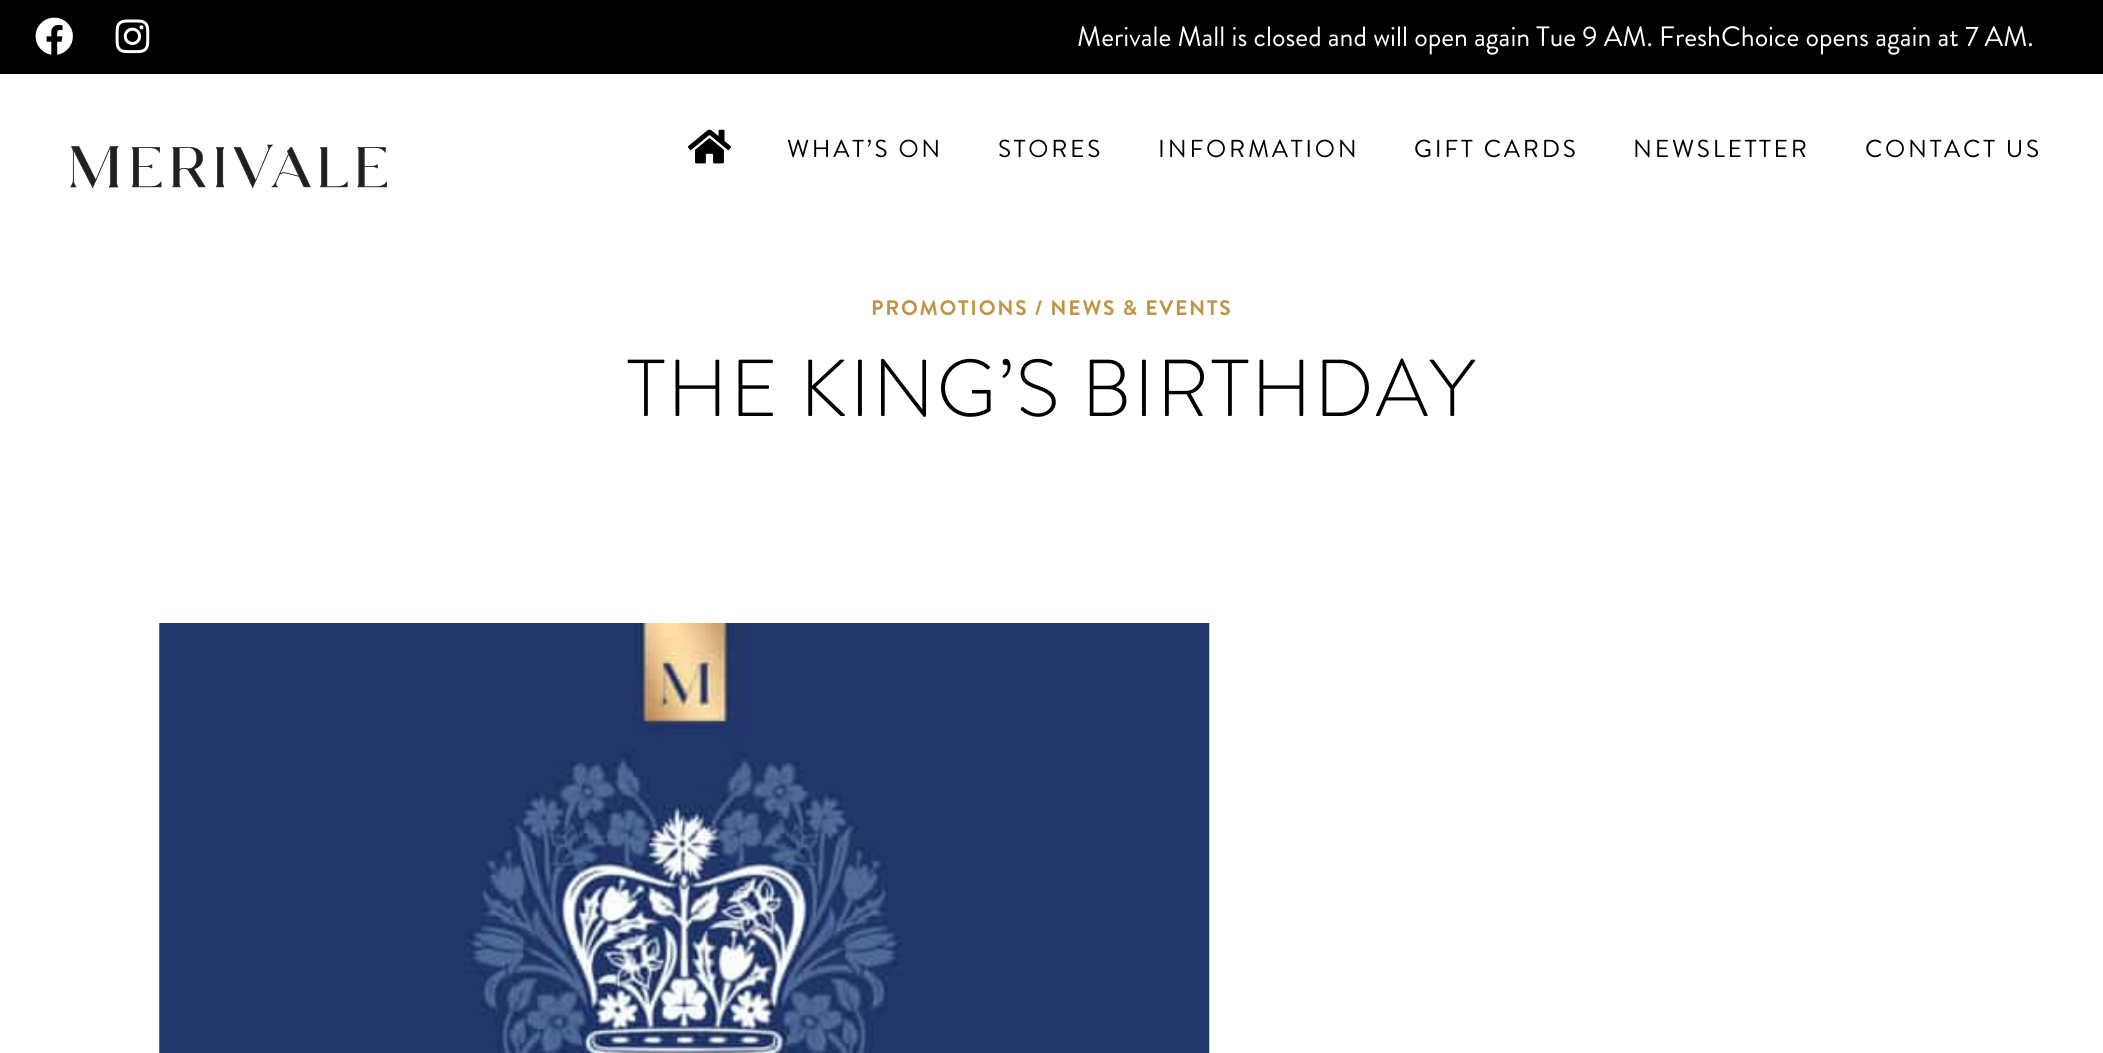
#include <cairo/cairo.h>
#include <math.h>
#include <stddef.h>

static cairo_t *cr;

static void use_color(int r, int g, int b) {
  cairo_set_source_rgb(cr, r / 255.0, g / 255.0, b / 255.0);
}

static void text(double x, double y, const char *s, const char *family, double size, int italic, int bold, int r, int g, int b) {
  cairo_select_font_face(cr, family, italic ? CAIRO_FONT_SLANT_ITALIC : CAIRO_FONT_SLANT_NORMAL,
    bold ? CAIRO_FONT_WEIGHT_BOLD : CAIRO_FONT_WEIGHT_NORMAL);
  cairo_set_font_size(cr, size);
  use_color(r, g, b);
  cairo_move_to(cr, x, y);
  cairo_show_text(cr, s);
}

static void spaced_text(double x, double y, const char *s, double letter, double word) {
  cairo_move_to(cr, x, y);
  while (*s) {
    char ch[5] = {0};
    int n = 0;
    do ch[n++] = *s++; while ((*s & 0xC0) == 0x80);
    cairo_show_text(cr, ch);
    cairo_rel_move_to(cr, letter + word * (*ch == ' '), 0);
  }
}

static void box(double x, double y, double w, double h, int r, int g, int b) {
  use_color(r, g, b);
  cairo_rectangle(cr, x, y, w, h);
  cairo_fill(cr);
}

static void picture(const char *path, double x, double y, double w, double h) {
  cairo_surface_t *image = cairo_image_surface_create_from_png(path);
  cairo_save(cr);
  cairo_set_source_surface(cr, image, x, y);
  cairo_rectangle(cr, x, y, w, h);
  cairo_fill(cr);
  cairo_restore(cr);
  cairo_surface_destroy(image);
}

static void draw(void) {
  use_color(255, 255, 255);
  cairo_paint(cr);
  box(0, 0, 2103, 74, 0, 0, 0);
  picture("img_01.png", 35, 17, 38, 38);
  picture("img_02.png", 115, 19, 35, 35);
  picture("img_03.png", 70, 144, 317, 45);
  picture("img_04.png", 687, 129, 45, 35);
  picture("img_05.png", 159, 623, 1051, 430);
  text(1077, 46, "Merivale Mall is closed and will open again Tue 9 AM. FreshChoice opens again at 7 AM.", "Brandon Grotesque", 28, 0, 0, 255, 255, 255);
  cairo_set_font_size(cr, 24.5);
  use_color(0, 0, 0);
  spaced_text(787, 157, "WHAT’S ON", 2.75, 0);
  spaced_text(998, 157, "STORES", 2.75, 0);
  spaced_text(1158, 157, "INFORMATION", 2.75, 0);
  spaced_text(1414, 157, "GIFT CARDS", 2.75, 0);
  spaced_text(1633, 157, "NEWSLETTER", 2.75, 0);
  spaced_text(1865, 157, "CONTACT US", 2.75, 0);
  cairo_select_font_face(cr, "Brandon Grotesque", CAIRO_FONT_SLANT_NORMAL, CAIRO_FONT_WEIGHT_BOLD);
  cairo_set_font_size(cr, 21);
  use_color(192, 148, 70);
  spaced_text(871, 315, "PROMOTIONS / NEWS & EVENTS", 1.75, 0);
  cairo_select_font_face(cr, "Brandon Grotesque Light", CAIRO_FONT_SLANT_NORMAL, CAIRO_FONT_WEIGHT_NORMAL);
  cairo_set_font_size(cr, 80.5);
  use_color(0, 0, 0);
  spaced_text(627, 416, "THE KING’S BIRTHDAY", 2.1, 0);
}

int main(void) {
  cairo_surface_t *surface = cairo_image_surface_create(CAIRO_FORMAT_RGB24, 2103, 1053);
  cr = cairo_create(surface);
  cairo_font_options_t *options = cairo_font_options_create();
  cairo_font_options_set_hint_metrics(options, CAIRO_HINT_METRICS_OFF);
  cairo_font_options_set_hint_style(options, CAIRO_HINT_STYLE_NONE);
  cairo_set_font_options(cr, options);
  cairo_set_miter_limit(cr, 4);
  draw();
  cairo_surface_write_to_png(surface, "out.png");
  cairo_font_options_destroy(options);
  cairo_destroy(cr);
  cairo_surface_destroy(surface);
  return 0;
}
